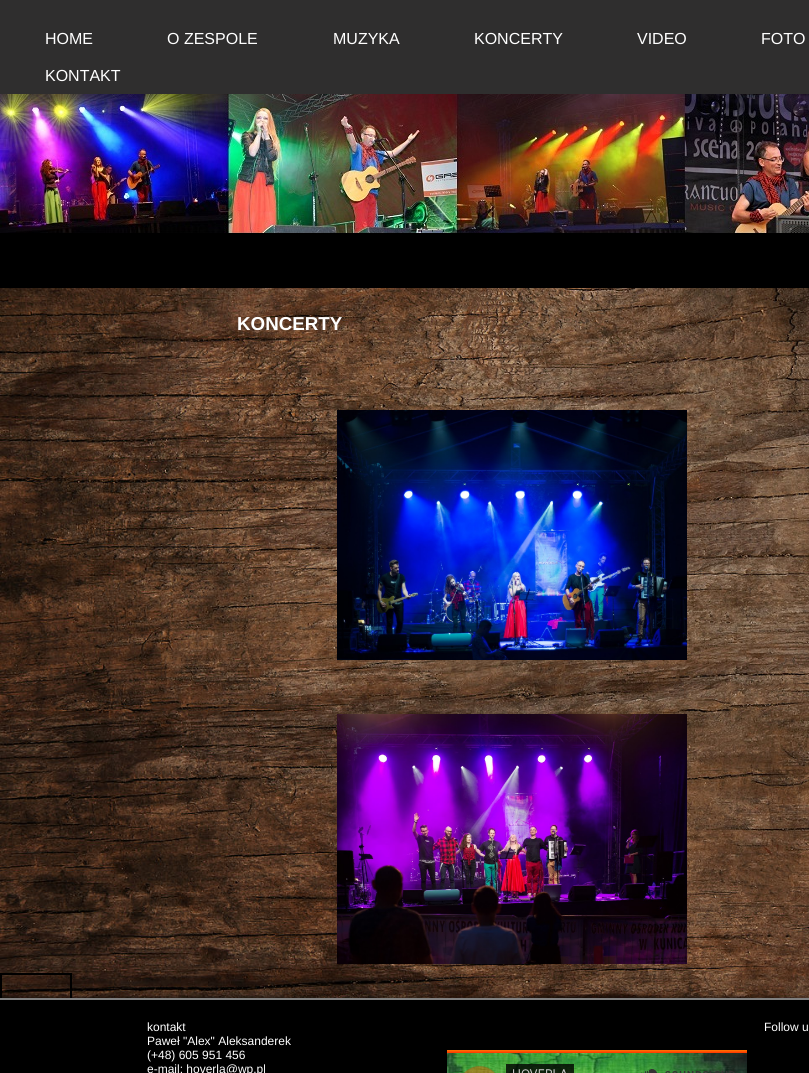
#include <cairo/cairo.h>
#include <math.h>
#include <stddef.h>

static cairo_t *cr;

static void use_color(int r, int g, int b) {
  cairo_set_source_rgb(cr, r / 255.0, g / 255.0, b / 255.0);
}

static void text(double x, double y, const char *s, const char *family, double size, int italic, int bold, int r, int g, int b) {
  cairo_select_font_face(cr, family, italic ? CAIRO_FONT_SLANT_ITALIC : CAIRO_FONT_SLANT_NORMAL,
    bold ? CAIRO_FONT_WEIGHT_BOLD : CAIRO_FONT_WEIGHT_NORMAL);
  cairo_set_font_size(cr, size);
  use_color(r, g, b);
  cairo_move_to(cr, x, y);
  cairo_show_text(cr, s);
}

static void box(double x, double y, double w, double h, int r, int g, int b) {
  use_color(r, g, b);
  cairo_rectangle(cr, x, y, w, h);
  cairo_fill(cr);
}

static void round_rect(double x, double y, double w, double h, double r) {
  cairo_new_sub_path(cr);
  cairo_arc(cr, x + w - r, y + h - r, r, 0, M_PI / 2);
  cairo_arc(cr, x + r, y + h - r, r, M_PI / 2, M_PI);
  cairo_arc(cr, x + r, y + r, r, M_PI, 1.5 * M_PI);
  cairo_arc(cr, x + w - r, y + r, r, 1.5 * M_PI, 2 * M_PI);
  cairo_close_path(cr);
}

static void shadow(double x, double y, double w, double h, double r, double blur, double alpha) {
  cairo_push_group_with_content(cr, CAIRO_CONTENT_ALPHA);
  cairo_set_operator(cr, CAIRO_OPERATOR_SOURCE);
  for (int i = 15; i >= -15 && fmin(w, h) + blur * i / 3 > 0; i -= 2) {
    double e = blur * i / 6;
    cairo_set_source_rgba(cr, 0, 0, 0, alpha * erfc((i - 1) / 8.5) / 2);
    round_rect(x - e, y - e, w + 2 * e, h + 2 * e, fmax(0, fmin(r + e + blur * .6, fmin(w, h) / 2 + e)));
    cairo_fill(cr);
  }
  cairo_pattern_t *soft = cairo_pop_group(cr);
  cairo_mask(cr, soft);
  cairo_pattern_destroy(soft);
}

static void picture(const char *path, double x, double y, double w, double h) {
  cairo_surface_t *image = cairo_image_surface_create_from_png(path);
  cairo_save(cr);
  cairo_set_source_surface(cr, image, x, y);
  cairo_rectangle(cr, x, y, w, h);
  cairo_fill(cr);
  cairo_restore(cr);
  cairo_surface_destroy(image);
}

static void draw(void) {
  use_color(255, 255, 255);
  cairo_paint(cr);
  picture("img_01.png", 0, 288, 809, 710);
  box(0, 0, 809, 94, 47, 46, 46);
  picture("img_02.png", 0, 94, 809, 139);
  box(0, 233, 809, 55, 0, 0, 0);
  picture("img_03.png", 337, 410, 350, 250);
  picture("img_04.png", 337, 714, 350, 250);
  cairo_rectangle(cr, 1, 974, 70, 70);
  cairo_stroke(cr);
  use_color(0, 0, 0);
  shadow(0, 998, 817, 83, 0, 2.5, 0.7);
  box(0, 1000, 809, 73, 0, 0, 0);
  box(0, 998, 809, 2, 128, 128, 128);
  picture("img_05.png", 447, 1050, 300, 23);
  text(45, 44, "HOME", "Liberation Sans", 16, 0, 0, 255, 255, 255);
  text(167, 44, "O ZESPOLE", "Liberation Sans", 16, 0, 0, 255, 255, 255);
  text(333, 44, "MUZYKA", "Liberation Sans", 16, 0, 0, 255, 255, 255);
  text(474, 44, "KONCERTY", "Liberation Sans", 16, 0, 0, 255, 255, 255);
  text(637, 44, "VIDEO", "Liberation Sans", 16, 0, 0, 255, 255, 255);
  text(761, 44, "FOTO", "Liberation Sans", 16, 0, 0, 255, 255, 255);
  text(45, 81, "KONTAKT", "Liberation Sans", 16, 0, 0, 255, 255, 255);
  text(237, 330, "KONCERTY", "Liberation Sans", 18.75, 0, 1, 255, 255, 255);
  text(147, 1031, "kontakt", "Liberation Sans", 12, 0, 0, 255, 255, 255);
  text(147, 1045, "Paweł \"Alex\" Aleksanderek", "Liberation Sans", 12, 0, 0, 255, 255, 255);
  text(147, 1059, "(+48) 605 951 456", "Liberation Sans", 12, 0, 0, 255, 255, 255);
  text(147, 1073, "e-mail: hoverla@wp.pl", "Liberation Sans", 12, 0, 0, 255, 255, 255);
  text(764, 1031, "Follow u", "Liberation Sans", 12, 0, 0, 255, 255, 255);
}

int main(void) {
  cairo_surface_t *surface = cairo_image_surface_create(CAIRO_FORMAT_RGB24, 809, 1073);
  cr = cairo_create(surface);
  cairo_font_options_t *options = cairo_font_options_create();
  cairo_font_options_set_hint_metrics(options, CAIRO_HINT_METRICS_OFF);
  cairo_font_options_set_hint_style(options, CAIRO_HINT_STYLE_NONE);
  cairo_set_font_options(cr, options);
  cairo_set_miter_limit(cr, 4);
  draw();
  cairo_surface_write_to_png(surface, "out.png");
  cairo_font_options_destroy(options);
  cairo_destroy(cr);
  cairo_surface_destroy(surface);
  return 0;
}
